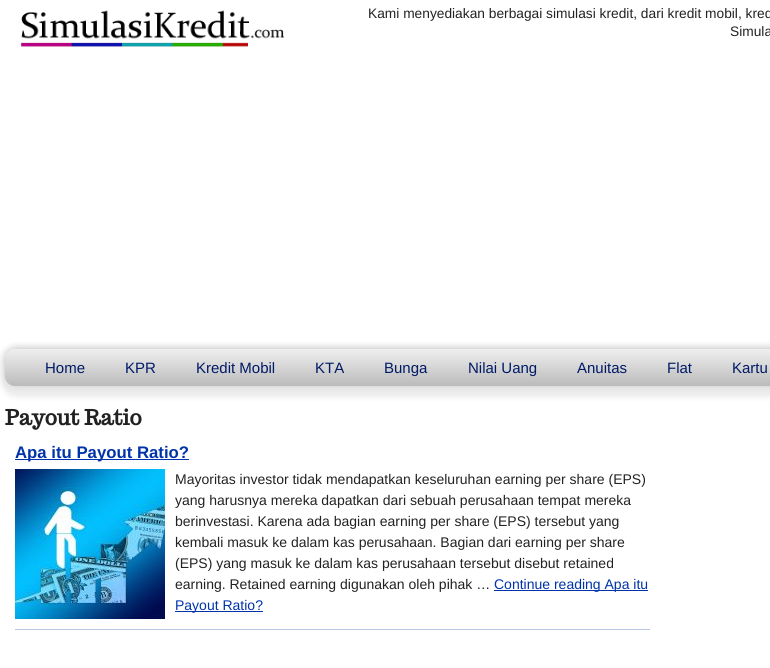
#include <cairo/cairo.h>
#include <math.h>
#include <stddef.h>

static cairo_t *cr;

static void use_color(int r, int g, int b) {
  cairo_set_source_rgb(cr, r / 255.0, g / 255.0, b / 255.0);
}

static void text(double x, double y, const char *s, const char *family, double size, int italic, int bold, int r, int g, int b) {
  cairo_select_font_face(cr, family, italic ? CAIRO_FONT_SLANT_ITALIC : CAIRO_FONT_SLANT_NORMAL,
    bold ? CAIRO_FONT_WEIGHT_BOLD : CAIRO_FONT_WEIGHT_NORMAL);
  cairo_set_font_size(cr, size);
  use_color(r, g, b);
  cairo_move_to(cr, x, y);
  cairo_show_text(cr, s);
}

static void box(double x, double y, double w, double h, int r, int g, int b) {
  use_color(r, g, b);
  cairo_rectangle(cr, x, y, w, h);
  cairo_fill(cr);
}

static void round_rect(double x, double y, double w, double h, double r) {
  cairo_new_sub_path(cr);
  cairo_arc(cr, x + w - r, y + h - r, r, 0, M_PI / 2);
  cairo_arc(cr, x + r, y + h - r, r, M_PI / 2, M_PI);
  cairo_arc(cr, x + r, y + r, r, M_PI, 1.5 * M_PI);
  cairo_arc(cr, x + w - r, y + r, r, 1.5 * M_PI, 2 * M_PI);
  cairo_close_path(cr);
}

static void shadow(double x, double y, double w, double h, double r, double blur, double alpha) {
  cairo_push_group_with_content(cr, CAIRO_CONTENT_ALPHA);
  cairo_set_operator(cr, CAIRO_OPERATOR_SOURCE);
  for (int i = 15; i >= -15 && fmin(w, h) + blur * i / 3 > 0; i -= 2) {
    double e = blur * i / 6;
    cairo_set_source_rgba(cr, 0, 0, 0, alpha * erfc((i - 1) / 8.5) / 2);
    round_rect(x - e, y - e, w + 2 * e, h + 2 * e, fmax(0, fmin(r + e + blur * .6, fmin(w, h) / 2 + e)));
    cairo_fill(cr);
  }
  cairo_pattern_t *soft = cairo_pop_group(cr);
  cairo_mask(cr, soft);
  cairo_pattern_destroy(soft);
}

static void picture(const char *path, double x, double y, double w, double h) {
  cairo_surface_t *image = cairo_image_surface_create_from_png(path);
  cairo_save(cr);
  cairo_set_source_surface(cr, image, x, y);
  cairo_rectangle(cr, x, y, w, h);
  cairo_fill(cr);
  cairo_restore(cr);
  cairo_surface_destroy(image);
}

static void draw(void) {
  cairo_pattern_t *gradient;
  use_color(255, 255, 255);
  cairo_paint(cr);
  picture("img_01.png", 21, 10, 263, 37);
  use_color(0, 0, 0);
  shadow(5, 349, 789, 45, 10, 4.5, 0.15);
  use_color(239, 239, 239);
  round_rect(5, 349, 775, 45, 10);
  cairo_fill(cr);
  use_color(0, 0, 0);
  shadow(5, 349, 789, 37, 10, 4.5, 0.15);
  gradient = cairo_pattern_create_linear(428, 349, 428, 386);
  cairo_pattern_add_color_stop_rgba(gradient, 0, 0.937, 0.937, 0.937, 1);
  cairo_pattern_add_color_stop_rgba(gradient, 1, 0.733, 0.733, 0.733, 1);
  cairo_set_source(cr, gradient);
  cairo_pattern_destroy(gradient);
  round_rect(5, 349, 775, 37, 10);
  cairo_fill(cr);
  box(15, 459, 174, 1, 0, 51, 170);
  box(15, 629, 635, 1, 184, 197, 227);
  picture("img_02.png", 15, 469, 150, 150);
  box(494, 590, 154, 1, 0, 51, 170);
  box(175, 611, 88, 1, 0, 51, 170);
  text(368, 18, "Kami menyediakan berbagai simulasi kredit, dari kredit mobil, kred", "Liberation Sans", 13.75, 0, 0, 34, 34, 34);
  text(730, 36, "Simula", "Liberation Sans", 13.75, 0, 0, 34, 34, 34);
  text(45, 373, "Home", "Liberation Sans", 15, 0, 0, 0, 26, 102);
  text(125, 373, "KPR", "Liberation Sans", 15, 0, 0, 0, 26, 102);
  text(196, 373, "Kredit Mobil", "Liberation Sans", 15, 0, 0, 0, 26, 102);
  text(315, 373, "KTA", "Liberation Sans", 15, 0, 0, 0, 26, 102);
  text(384, 373, "Bunga", "Liberation Sans", 15, 0, 0, 0, 26, 102);
  text(468, 373, "Nilai Uang", "Liberation Sans", 15, 0, 0, 0, 26, 102);
  text(577, 373, "Anuitas", "Liberation Sans", 15, 0, 0, 0, 26, 102);
  text(667, 373, "Flat", "Liberation Sans", 15, 0, 0, 0, 26, 102);
  text(732, 373, "Kartu", "Liberation Sans", 15, 0, 0, 0, 26, 102);
  text(5, 425, "Payout Ratio", "Trocchi", 21, 0, 1, 34, 34, 34);
  text(15, 458, "Apa itu Payout Ratio?", "Liberation Sans", 16.75, 0, 1, 0, 51, 170);
  text(175, 484, "Mayoritas investor tidak mendapatkan keseluruhan earning per share (EPS)", "Liberation Sans", 14, 0, 0, 34, 34, 34);
  text(175, 505, "yang harusnya mereka dapatkan dari sebuah perusahaan tempat mereka", "Liberation Sans", 14, 0, 0, 34, 34, 34);
  text(175, 526, "berinvestasi. Karena ada bagian earning per share (EPS) tersebut yang", "Liberation Sans", 14, 0, 0, 34, 34, 34);
  text(175, 547, "kembali masuk ke dalam kas perusahaan. Bagian dari earning per share", "Liberation Sans", 14, 0, 0, 34, 34, 34);
  text(175, 568, "(EPS) yang masuk ke dalam kas perusahaan tersebut disebut retained", "Liberation Sans", 14, 0, 0, 34, 34, 34);
  text(175, 589, "earning. Retained earning digunakan oleh pihak …", "Liberation Sans", 14, 0, 0, 34, 34, 34);
  text(494, 589, "Continue reading Apa itu", "Liberation Sans", 14, 0, 0, 0, 51, 170);
  text(175, 610, "Payout Ratio?", "Liberation Sans", 14, 0, 0, 0, 51, 170);
}

int main(void) {
  cairo_surface_t *surface = cairo_image_surface_create(CAIRO_FORMAT_RGB24, 770, 668);
  cr = cairo_create(surface);
  cairo_font_options_t *options = cairo_font_options_create();
  cairo_font_options_set_hint_metrics(options, CAIRO_HINT_METRICS_OFF);
  cairo_font_options_set_hint_style(options, CAIRO_HINT_STYLE_NONE);
  cairo_set_font_options(cr, options);
  cairo_set_miter_limit(cr, 4);
  draw();
  cairo_surface_write_to_png(surface, "out.png");
  cairo_font_options_destroy(options);
  cairo_destroy(cr);
  cairo_surface_destroy(surface);
  return 0;
}
